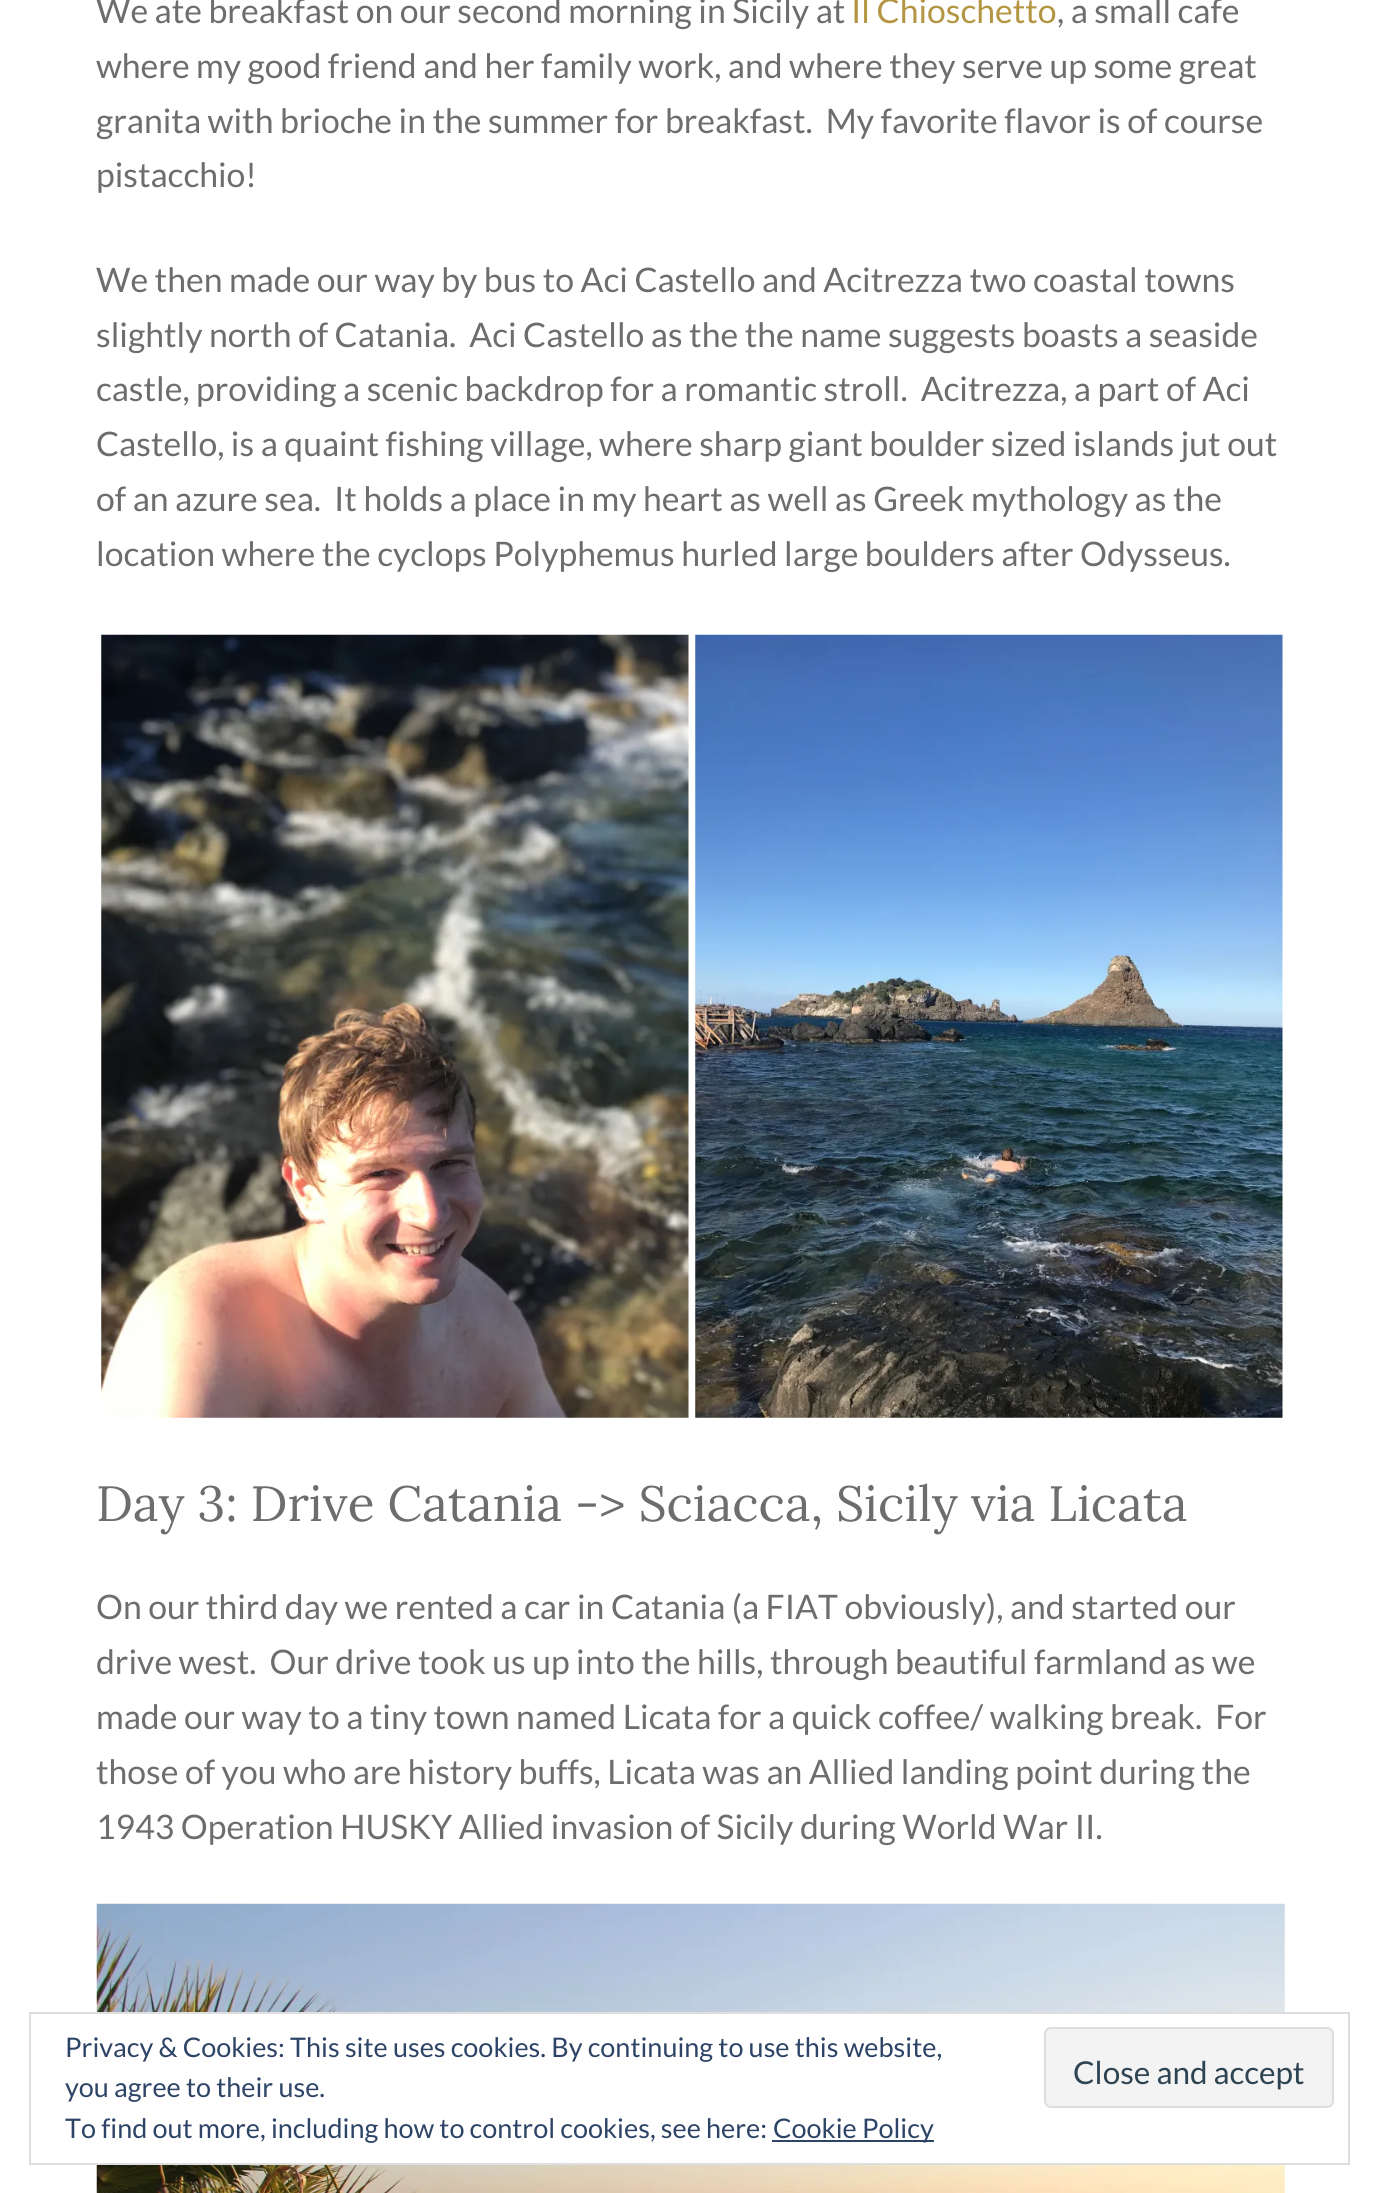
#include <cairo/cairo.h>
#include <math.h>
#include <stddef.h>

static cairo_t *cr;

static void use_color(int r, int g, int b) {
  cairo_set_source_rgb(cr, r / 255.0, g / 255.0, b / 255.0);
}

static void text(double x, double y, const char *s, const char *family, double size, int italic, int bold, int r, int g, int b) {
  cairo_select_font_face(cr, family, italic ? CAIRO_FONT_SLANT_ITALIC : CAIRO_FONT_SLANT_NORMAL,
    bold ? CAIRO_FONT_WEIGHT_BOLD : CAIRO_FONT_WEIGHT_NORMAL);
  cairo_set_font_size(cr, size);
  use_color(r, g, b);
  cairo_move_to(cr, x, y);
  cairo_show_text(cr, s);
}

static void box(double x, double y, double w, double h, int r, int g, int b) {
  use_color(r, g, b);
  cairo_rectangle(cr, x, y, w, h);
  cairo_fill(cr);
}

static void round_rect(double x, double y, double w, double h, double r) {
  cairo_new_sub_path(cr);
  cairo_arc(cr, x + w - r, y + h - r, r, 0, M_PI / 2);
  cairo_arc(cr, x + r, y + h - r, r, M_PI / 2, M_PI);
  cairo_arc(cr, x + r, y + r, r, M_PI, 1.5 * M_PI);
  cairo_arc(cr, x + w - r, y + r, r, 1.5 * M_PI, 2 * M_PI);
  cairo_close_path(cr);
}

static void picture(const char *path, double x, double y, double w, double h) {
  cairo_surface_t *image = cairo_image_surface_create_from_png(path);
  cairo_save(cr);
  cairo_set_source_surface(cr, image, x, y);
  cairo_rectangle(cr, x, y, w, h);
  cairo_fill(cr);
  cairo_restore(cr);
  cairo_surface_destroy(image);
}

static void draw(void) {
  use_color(255, 255, 255);
  cairo_paint(cr);
  picture("img_01.png", 101, 634, 588, 784);
  picture("img_02.png", 695, 634, 588, 784);
  picture("img_03.png", 96, 1903, 1189, 290);
  box(96, 2014, 1189, 149, 255, 255, 255);
  cairo_rectangle(cr, 30, 2013, 1319, 151);
  use_color(222, 222, 222);
  cairo_stroke(cr);
  use_color(243, 243, 243);
  round_rect(1045, 2028, 288, 79, 6);
  cairo_fill_preserve(cr);
  use_color(222, 222, 222);
  cairo_stroke(cr);
  box(772, 2140, 162, 2, 46, 68, 103);
  text(96, 23, "We ate breakfast on our second morning in Sicily at", "Lato", 33.75, 0, 0, 109, 109, 109);
  text(851, 23, "Il Chioschetto", "Lato", 33.75, 0, 0, 180, 149, 67);
  text(1057, 23, ", a small cafe", "Lato", 33.75, 0, 0, 109, 109, 109);
  text(96, 78, "where my good friend and her family work, and where they serve up some great", "Lato", 33.75, 0, 0, 109, 109, 109);
  text(96, 133, "granita with brioche in the summer for breakfast.  My favorite flavor is of course", "Lato", 33.75, 0, 0, 109, 109, 109);
  text(96, 187, "pistacchio!", "Lato", 33.75, 0, 0, 109, 109, 109);
  text(96, 292, "We then made our way by bus to Aci Castello and Acitrezza two coastal towns", "Lato", 33.75, 0, 0, 109, 109, 109);
  text(96, 347, "slightly north of Catania.  Aci Castello as the the name suggests boasts a seaside", "Lato", 33.75, 0, 0, 109, 109, 109);
  text(96, 401, "castle, providing a scenic backdrop for a romantic stroll.  Acitrezza, a part of Aci", "Lato", 33.75, 0, 0, 109, 109, 109);
  text(96, 456, "Castello, is a quaint fishing village, where sharp giant boulder sized islands jut out", "Lato", 33.75, 0, 0, 109, 109, 109);
  text(96, 511, "of an azure sea.  It holds a place in my heart as well as Greek mythology as the", "Lato", 33.75, 0, 0, 109, 109, 109);
  text(96, 566, "location where the cyclops Polyphemus hurled large boulders after Odysseus.", "Lato", 33.75, 0, 0, 109, 109, 109);
  text(96, 1521, "Day 3: Drive Catania -> Sciacca, Sicily via Licata", "Lora", 49.5, 0, 0, 109, 109, 109);
  text(96, 1619, "On our third day we rented a car in Catania (a FIAT obviously), and started our", "Lato", 33.75, 0, 0, 109, 109, 109);
  text(96, 1674, "drive west.  Our drive took us up into the hills, through beautiful farmland as we", "Lato", 33.75, 0, 0, 109, 109, 109);
  text(96, 1729, "made our way to a tiny town named Licata for a quick coffee/ walking break.  For", "Lato", 33.75, 0, 0, 109, 109, 109);
  text(96, 1784, "those of you who are history buffs, Licata was an Allied landing point during the", "Lato", 33.75, 0, 0, 109, 109, 109);
  text(96, 1839, "1943 Operation HUSKY Allied invasion of Sicily during World War II.", "Lato", 33.75, 0, 0, 109, 109, 109);
  text(65, 2057, "Privacy & Cookies: This site uses cookies. By continuing to use this website,", "Lato", 27, 0, 0, 46, 68, 103);
  text(65, 2097, "you agree to their use.", "Lato", 27, 0, 0, 46, 68, 103);
  text(1073, 2084, "Close and accept", "Lato", 31.5, 0, 0, 46, 68, 83);
  text(65, 2138, "To find out more, including how to control cookies, see here:", "Lato", 27, 0, 0, 46, 68, 103);
  text(773, 2138, "Cookie Policy", "Lato", 27, 0, 0, 46, 68, 103);
}

int main(void) {
  cairo_surface_t *surface = cairo_image_surface_create(CAIRO_FORMAT_RGB24, 1379, 2193);
  cr = cairo_create(surface);
  cairo_font_options_t *options = cairo_font_options_create();
  cairo_font_options_set_hint_metrics(options, CAIRO_HINT_METRICS_OFF);
  cairo_font_options_set_hint_style(options, CAIRO_HINT_STYLE_NONE);
  cairo_set_font_options(cr, options);
  cairo_set_miter_limit(cr, 4);
  draw();
  cairo_surface_write_to_png(surface, "out.png");
  cairo_font_options_destroy(options);
  cairo_destroy(cr);
  cairo_surface_destroy(surface);
  return 0;
}
